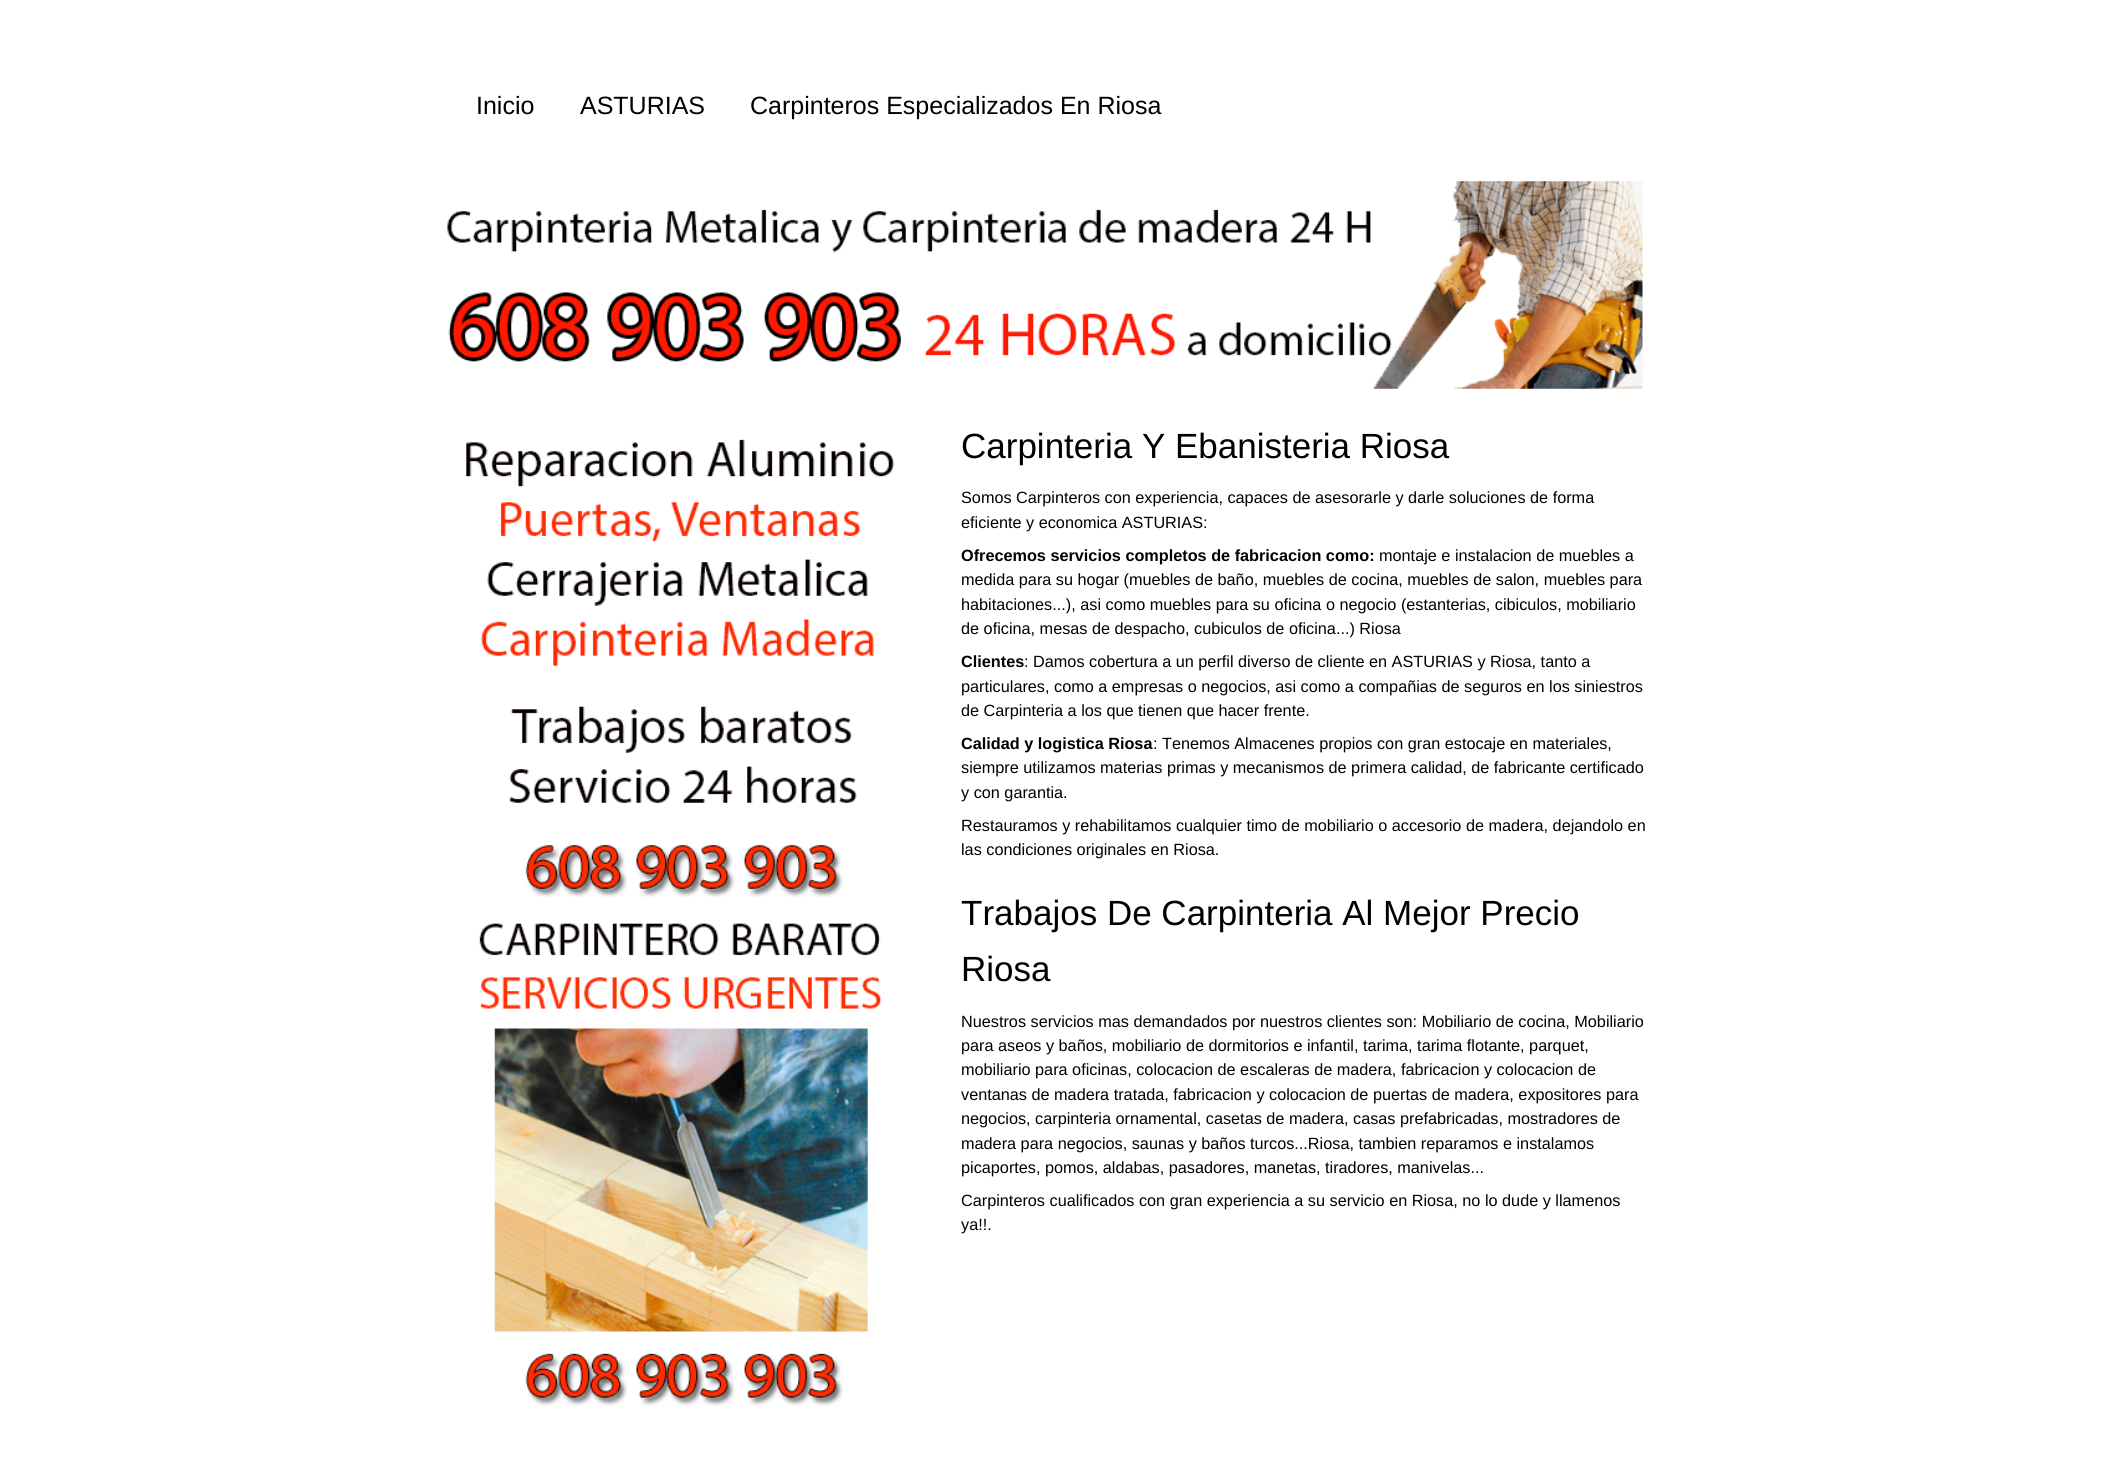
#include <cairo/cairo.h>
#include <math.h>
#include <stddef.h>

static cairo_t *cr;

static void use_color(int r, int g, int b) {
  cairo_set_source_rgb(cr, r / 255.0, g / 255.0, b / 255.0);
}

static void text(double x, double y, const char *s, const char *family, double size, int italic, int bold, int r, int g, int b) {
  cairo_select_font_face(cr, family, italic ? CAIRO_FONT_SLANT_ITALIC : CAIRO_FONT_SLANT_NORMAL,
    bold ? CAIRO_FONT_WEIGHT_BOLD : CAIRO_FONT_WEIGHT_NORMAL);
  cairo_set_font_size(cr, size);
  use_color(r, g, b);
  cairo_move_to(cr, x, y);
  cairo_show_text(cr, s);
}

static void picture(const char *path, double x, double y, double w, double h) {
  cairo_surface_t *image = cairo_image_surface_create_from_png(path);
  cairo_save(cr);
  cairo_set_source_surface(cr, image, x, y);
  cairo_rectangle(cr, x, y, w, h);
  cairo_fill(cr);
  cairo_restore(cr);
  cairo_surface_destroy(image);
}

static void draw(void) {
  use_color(255, 255, 255);
  cairo_paint(cr);
  picture("img_01.png", 447, 181, 1196, 208);
  picture("img_02.png", 466, 439, 428, 458);
  picture("img_03.png", 479, 923, 403, 483);
  text(476, 114, "Inicio", "Liberation Sans", 25, 0, 0, 0, 0, 0);
  text(580, 114, "ASTURIAS", "Liberation Sans", 25, 0, 0, 0, 0, 0);
  text(750, 114, "Carpinteros Especializados En Riosa", "Liberation Sans", 25, 0, 0, 0, 0, 0);
  text(961, 458, "Carpinteria Y Ebanisteria Riosa", "Liberation Sans", 35, 0, 0, 0, 0, 0);
  text(961, 503, "Somos Carpinteros con experiencia, capaces de asesorarle y darle soluciones de forma", "Liberation Sans", 16.25, 0, 0, 0, 0, 0);
  text(961, 528, "eficiente y economica ASTURIAS:", "Liberation Sans", 16.25, 0, 0, 0, 0, 0);
  text(961, 561, "Ofrecemos servicios completos de fabricacion como:", "Liberation Sans", 16.25, 0, 1, 0, 0, 0);
  text(1379, 561, "montaje e instalacion de muebles a", "Liberation Sans", 16.25, 0, 0, 0, 0, 0);
  text(961, 585, "medida para su hogar (muebles de baño, muebles de cocina, muebles de salon, muebles para", "Liberation Sans", 16.25, 0, 0, 0, 0, 0);
  text(961, 610, "habitaciones...), asi como muebles para su oficina o negocio (estanterias, cibiculos, mobiliario", "Liberation Sans", 16.25, 0, 0, 0, 0, 0);
  text(961, 634, "de oficina, mesas de despacho, cubiculos de oficina...) Riosa", "Liberation Sans", 16.25, 0, 0, 0, 0, 0);
  text(961, 667, "Clientes", "Liberation Sans", 16.25, 0, 1, 0, 0, 0);
  text(1024, 667, ": Damos cobertura a un perfil diverso de cliente en ASTURIAS y Riosa, tanto a", "Liberation Sans", 16.25, 0, 0, 0, 0, 0);
  text(961, 692, "particulares, como a empresas o negocios, asi como a compañias de seguros en los siniestros", "Liberation Sans", 16.25, 0, 0, 0, 0, 0);
  text(961, 716, "de Carpinteria a los que tienen que hacer frente.", "Liberation Sans", 16.25, 0, 0, 0, 0, 0);
  text(961, 749, "Calidad y logistica Riosa", "Liberation Sans", 16.25, 0, 1, 0, 0, 0);
  text(1153, 749, ": Tenemos Almacenes propios con gran estocaje en materiales,", "Liberation Sans", 16.25, 0, 0, 0, 0, 0);
  text(961, 773, "siempre utilizamos materias primas y mecanismos de primera calidad, de fabricante certificado", "Liberation Sans", 16.25, 0, 0, 0, 0, 0);
  text(961, 798, "y con garantia.", "Liberation Sans", 16.25, 0, 0, 0, 0, 0);
  text(961, 831, "Restauramos y rehabilitamos cualquier timo de mobiliario o accesorio de madera, dejandolo en", "Liberation Sans", 16.25, 0, 0, 0, 0, 0);
  text(961, 855, "las condiciones originales en Riosa.", "Liberation Sans", 16.25, 0, 0, 0, 0, 0);
  text(961, 925, "Trabajos De Carpinteria Al Mejor Precio", "Liberation Sans", 35, 0, 0, 0, 0, 0);
  text(961, 981, "Riosa", "Liberation Sans", 35, 0, 0, 0, 0, 0);
  text(961, 1027, "Nuestros servicios mas demandados por nuestros clientes son: Mobiliario de cocina, Mobiliario", "Liberation Sans", 16.25, 0, 0, 0, 0, 0);
  text(961, 1051, "para aseos y baños, mobiliario de dormitorios e infantil, tarima, tarima flotante, parquet,", "Liberation Sans", 16.25, 0, 0, 0, 0, 0);
  text(961, 1075, "mobiliario para oficinas, colocacion de escaleras de madera, fabricacion y colocacion de", "Liberation Sans", 16.25, 0, 0, 0, 0, 0);
  text(961, 1100, "ventanas de madera tratada, fabricacion y colocacion de puertas de madera, expositores para", "Liberation Sans", 16.25, 0, 0, 0, 0, 0);
  text(961, 1124, "negocios, carpinteria ornamental, casetas de madera, casas prefabricadas, mostradores de", "Liberation Sans", 16.25, 0, 0, 0, 0, 0);
  text(961, 1149, "madera para negocios, saunas y baños turcos...Riosa, tambien reparamos e instalamos", "Liberation Sans", 16.25, 0, 0, 0, 0, 0);
  text(961, 1173, "picaportes, pomos, aldabas, pasadores, manetas, tiradores, manivelas...", "Liberation Sans", 16.25, 0, 0, 0, 0, 0);
  text(961, 1206, "Carpinteros cualificados con gran experiencia a su servicio en Riosa, no lo dude y llamenos", "Liberation Sans", 16.25, 0, 0, 0, 0, 0);
  text(961, 1230, "ya!!.", "Liberation Sans", 16.25, 0, 0, 0, 0, 0);
}

int main(void) {
  cairo_surface_t *surface = cairo_image_surface_create(CAIRO_FORMAT_RGB24, 2109, 1478);
  cr = cairo_create(surface);
  cairo_font_options_t *options = cairo_font_options_create();
  cairo_font_options_set_hint_metrics(options, CAIRO_HINT_METRICS_OFF);
  cairo_font_options_set_hint_style(options, CAIRO_HINT_STYLE_NONE);
  cairo_set_font_options(cr, options);
  cairo_set_miter_limit(cr, 4);
  draw();
  cairo_surface_write_to_png(surface, "out.png");
  cairo_font_options_destroy(options);
  cairo_destroy(cr);
  cairo_surface_destroy(surface);
  return 0;
}
